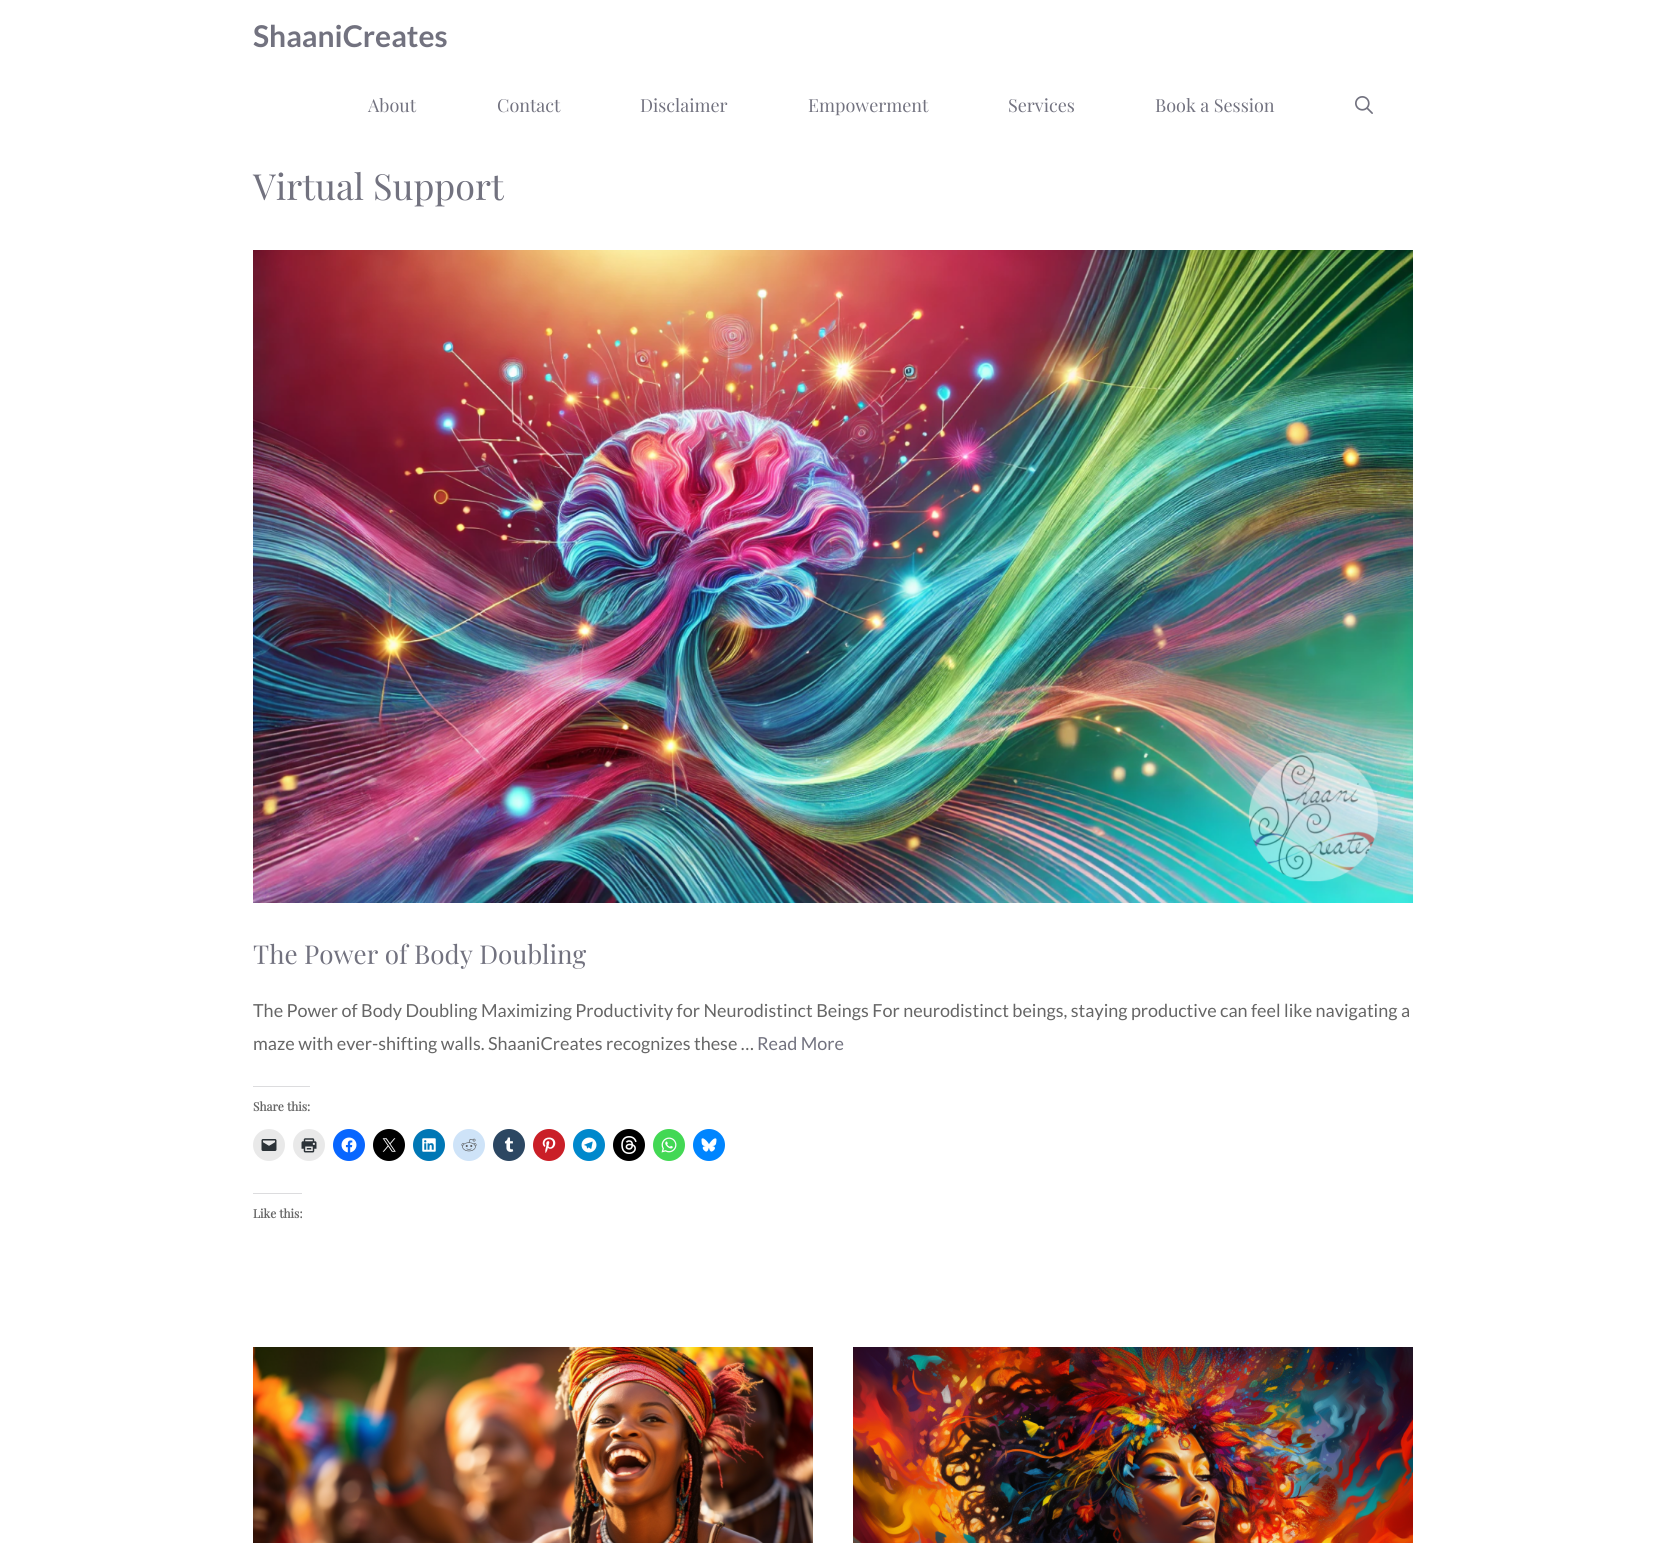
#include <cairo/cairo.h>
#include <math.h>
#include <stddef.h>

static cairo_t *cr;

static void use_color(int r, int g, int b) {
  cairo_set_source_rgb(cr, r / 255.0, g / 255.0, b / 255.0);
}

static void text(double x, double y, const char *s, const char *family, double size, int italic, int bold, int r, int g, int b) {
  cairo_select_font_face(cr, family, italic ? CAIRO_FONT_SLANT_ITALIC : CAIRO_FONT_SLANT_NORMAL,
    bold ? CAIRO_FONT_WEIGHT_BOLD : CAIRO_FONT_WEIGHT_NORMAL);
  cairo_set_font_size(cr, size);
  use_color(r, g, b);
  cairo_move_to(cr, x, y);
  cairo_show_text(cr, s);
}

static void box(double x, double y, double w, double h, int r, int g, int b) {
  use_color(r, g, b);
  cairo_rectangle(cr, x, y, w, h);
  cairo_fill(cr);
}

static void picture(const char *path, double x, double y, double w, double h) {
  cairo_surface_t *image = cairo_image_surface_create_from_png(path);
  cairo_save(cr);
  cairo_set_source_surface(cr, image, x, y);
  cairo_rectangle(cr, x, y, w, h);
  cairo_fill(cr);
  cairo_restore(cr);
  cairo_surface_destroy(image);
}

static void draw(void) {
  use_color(255, 255, 255);
  cairo_paint(cr);
  picture("img_01.png", 1355, 96, 18, 18);
  picture("img_02.png", 253, 250, 1160, 653);
  box(253, 1086, 57, 1, 220, 220, 222);
  use_color(233, 233, 233);
  cairo_arc(cr, 269, 1145, 16, 0, 2 * M_PI);
  cairo_fill(cr);
  picture("img_03.png", 261, 1139, 16, 12);
  cairo_arc(cr, 309, 1145, 16, 0, 2 * M_PI);
  cairo_fill(cr);
  picture("img_04.png", 301, 1138, 16, 15);
  use_color(8, 102, 255);
  cairo_arc(cr, 349, 1145, 16, 0, 2 * M_PI);
  cairo_fill(cr);
  picture("img_05.png", 341, 1137, 16, 16);
  use_color(0, 0, 0);
  cairo_arc(cr, 389, 1145, 16, 0, 2 * M_PI);
  cairo_fill(cr);
  picture("img_06.png", 382, 1138, 14, 14);
  use_color(0, 119, 181);
  cairo_arc(cr, 429, 1145, 16, 0, 2 * M_PI);
  cairo_fill(cr);
  picture("img_07.png", 422, 1138, 14, 14);
  use_color(206, 227, 248);
  cairo_arc(cr, 469, 1145, 16, 0, 2 * M_PI);
  cairo_fill(cr);
  picture("img_08.png", 461, 1138, 16, 14);
  use_color(44, 71, 98);
  cairo_arc(cr, 509, 1145, 16, 0, 2 * M_PI);
  cairo_fill(cr);
  picture("img_09.png", 504, 1137, 10, 15);
  use_color(202, 31, 39);
  cairo_arc(cr, 549, 1145, 16, 0, 2 * M_PI);
  cairo_fill(cr);
  picture("img_10.png", 542, 1137, 14, 16);
  use_color(0, 136, 204);
  cairo_arc(cr, 589, 1145, 16, 0, 2 * M_PI);
  cairo_fill(cr);
  picture("img_11.png", 581, 1137, 16, 16);
  use_color(0, 0, 0);
  cairo_arc(cr, 629, 1145, 16, 0, 2 * M_PI);
  cairo_fill(cr);
  picture("img_12.png", 621, 1136, 16, 18);
  use_color(67, 216, 84);
  cairo_arc(cr, 669, 1145, 16, 0, 2 * M_PI);
  cairo_fill(cr);
  picture("img_13.png", 661, 1137, 16, 16);
  use_color(0, 133, 255);
  cairo_arc(cr, 709, 1145, 16, 0, 2 * M_PI);
  cairo_fill(cr);
  picture("img_14.png", 701, 1138, 16, 14);
  box(253, 1193, 49, 1, 220, 220, 222);
  picture("img_15.png", 253, 1347, 560, 196);
  picture("img_16.png", 853, 1347, 560, 196);
  text(253, 47, "ShaaniCreates", "Lato", 30, 0, 1, 114, 114, 127);
  text(368, 112, "About", "Playfair Display", 18, 0, 0, 114, 114, 127);
  text(497, 112, "Contact", "Playfair Display", 18, 0, 0, 114, 114, 127);
  text(640, 112, "Disclaimer", "Playfair Display", 18, 0, 0, 114, 114, 127);
  text(808, 112, "Empowerment", "Playfair Display", 18, 0, 0, 114, 114, 127);
  text(1008, 112, "Services", "Playfair Display", 18, 0, 0, 114, 114, 127);
  text(1155, 112, "Book a Session", "Playfair Display", 18, 0, 0, 114, 114, 127);
  text(253, 200, "Virtual Support", "Playfair Display", 36, 0, 0, 114, 114, 127);
  text(253, 964, "The Power of Body Doubling", "Playfair Display", 26, 0, 0, 114, 114, 127);
  text(253, 1017, "The Power of Body Doubling Maximizing Productivity for Neurodistinct Beings For neurodistinct beings, staying productive can feel like navigating a", "Lato", 18, 0, 0, 102, 102, 102);
  text(253, 1050, "maze with ever-shifting walls. ShaaniCreates recognizes these …", "Lato", 18, 0, 0, 102, 102, 102);
  text(757, 1050, "Read More", "Lato", 18, 0, 0, 114, 114, 127);
  text(253, 1111, "Share this:", "Playfair Display", 12, 0, 1, 102, 102, 102);
  text(253, 1218, "Like this:", "Playfair Display", 12, 0, 1, 102, 102, 102);
}

int main(void) {
  cairo_surface_t *surface = cairo_image_surface_create(CAIRO_FORMAT_RGB24, 1665, 1543);
  cr = cairo_create(surface);
  cairo_font_options_t *options = cairo_font_options_create();
  cairo_font_options_set_hint_metrics(options, CAIRO_HINT_METRICS_OFF);
  cairo_font_options_set_hint_style(options, CAIRO_HINT_STYLE_NONE);
  cairo_set_font_options(cr, options);
  cairo_set_miter_limit(cr, 4);
  draw();
  cairo_surface_write_to_png(surface, "out.png");
  cairo_font_options_destroy(options);
  cairo_destroy(cr);
  cairo_surface_destroy(surface);
  return 0;
}
